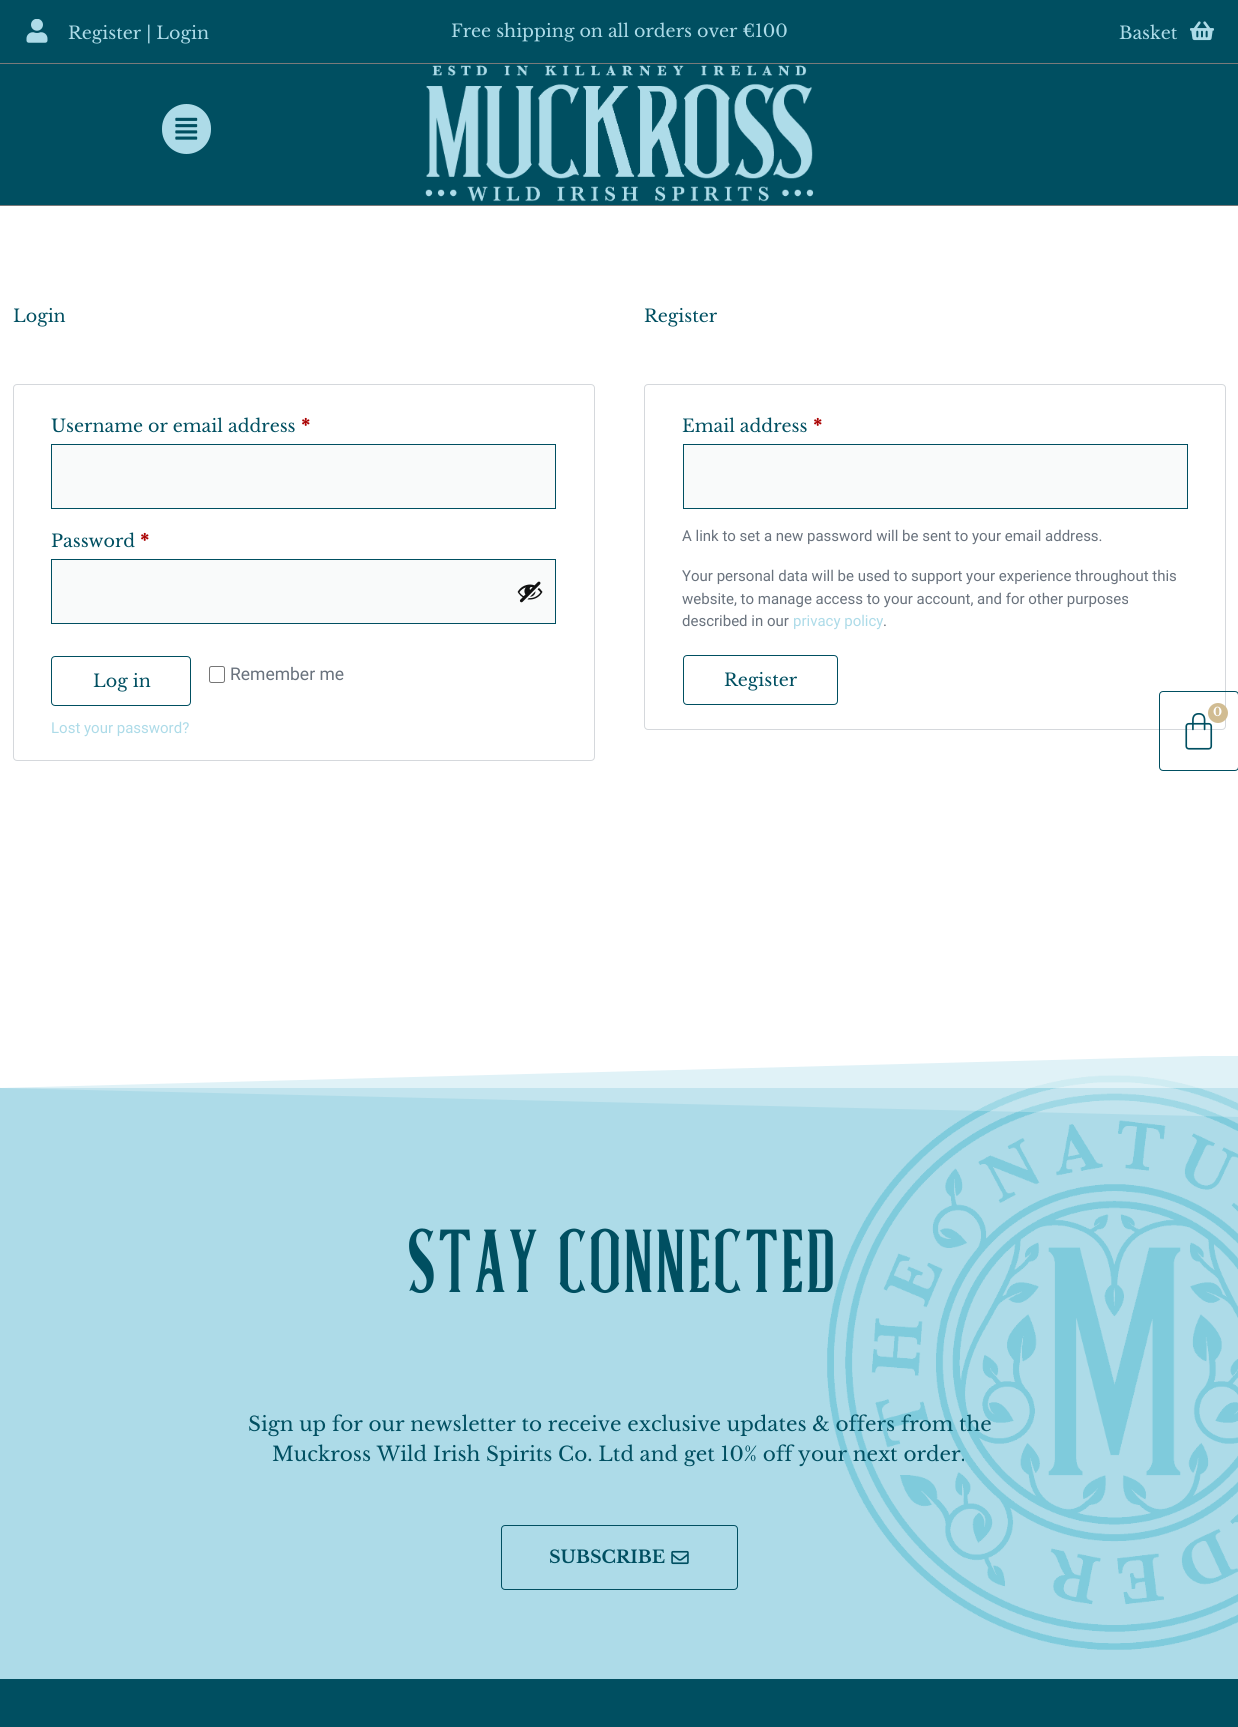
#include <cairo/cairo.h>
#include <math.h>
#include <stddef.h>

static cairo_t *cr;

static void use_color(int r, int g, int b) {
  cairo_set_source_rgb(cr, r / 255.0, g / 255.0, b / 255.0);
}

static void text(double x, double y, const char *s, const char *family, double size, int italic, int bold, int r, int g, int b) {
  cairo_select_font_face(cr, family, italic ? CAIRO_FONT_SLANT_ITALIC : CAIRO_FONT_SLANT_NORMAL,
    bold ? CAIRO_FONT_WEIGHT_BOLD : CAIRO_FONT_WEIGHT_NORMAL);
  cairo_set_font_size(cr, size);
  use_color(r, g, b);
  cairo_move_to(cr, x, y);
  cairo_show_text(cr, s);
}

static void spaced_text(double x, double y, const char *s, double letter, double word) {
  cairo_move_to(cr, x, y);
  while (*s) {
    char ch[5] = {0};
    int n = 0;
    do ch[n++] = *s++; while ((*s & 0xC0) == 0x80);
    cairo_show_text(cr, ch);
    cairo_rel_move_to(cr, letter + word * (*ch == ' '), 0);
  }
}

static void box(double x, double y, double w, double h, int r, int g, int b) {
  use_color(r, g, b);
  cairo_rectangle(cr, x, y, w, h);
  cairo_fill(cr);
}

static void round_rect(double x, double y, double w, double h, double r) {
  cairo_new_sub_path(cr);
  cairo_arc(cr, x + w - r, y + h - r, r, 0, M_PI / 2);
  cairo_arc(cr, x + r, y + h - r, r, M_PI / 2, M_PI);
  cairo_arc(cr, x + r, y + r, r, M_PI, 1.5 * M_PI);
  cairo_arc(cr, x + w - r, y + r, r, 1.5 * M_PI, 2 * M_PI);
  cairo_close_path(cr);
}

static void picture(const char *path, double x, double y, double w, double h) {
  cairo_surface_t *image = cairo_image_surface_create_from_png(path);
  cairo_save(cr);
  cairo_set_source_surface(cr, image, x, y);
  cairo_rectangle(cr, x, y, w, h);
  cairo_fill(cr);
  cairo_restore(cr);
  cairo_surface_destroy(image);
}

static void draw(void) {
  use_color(255, 255, 255);
  cairo_paint(cr);
  box(0, 0, 1238, 63, 0, 79, 97);
  box(0, 63, 1238, 1, 122, 122, 122);
  picture("img_01.png", 26, 19, 22, 24);
  picture("img_02.png", 1190, 21, 24, 20);
  box(0, 64, 1238, 141, 0, 79, 97);
  box(0, 205, 1238, 1, 122, 122, 122);
  use_color(173, 219, 232);
  round_rect(160, 102, 53, 54, 26.5);
  cairo_fill_preserve(cr);
  use_color(0, 79, 97);
  cairo_set_line_width(cr, 4);
  cairo_stroke(cr);
  picture("img_03.png", 175, 117, 23, 23);
  picture("img_04.png", 425, 65, 389, 137);
  round_rect(13.5, 384.5, 581, 376, 3.5);
  use_color(213, 216, 220);
  cairo_set_line_width(cr, 1);
  cairo_stroke(cr);
  use_color(249, 250, 250);
  cairo_rectangle(cr, 51.5, 444.5, 504, 64);
  cairo_fill_preserve(cr);
  use_color(0, 79, 97);
  cairo_stroke(cr);
  use_color(249, 250, 250);
  cairo_rectangle(cr, 51.5, 559.5, 504, 64);
  cairo_fill_preserve(cr);
  use_color(0, 79, 97);
  cairo_stroke(cr);
  picture("img_05.png", 517, 581, 26, 22);
  round_rect(51.5, 656.5, 139, 49, 3.5);
  cairo_stroke(cr);
  round_rect(209.5, 666.5, 15, 16, 2);
  use_color(118, 118, 118);
  cairo_stroke(cr);
  round_rect(644.5, 384.5, 581, 345, 3.5);
  use_color(213, 216, 220);
  cairo_stroke(cr);
  use_color(249, 250, 250);
  cairo_rectangle(cr, 683.5, 444.5, 504, 64);
  cairo_fill_preserve(cr);
  use_color(0, 79, 97);
  cairo_stroke(cr);
  round_rect(683.5, 655.5, 154, 49, 3.5);
  cairo_stroke(cr);
  round_rect(1159.5, 691.5, 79, 79, 3.5);
  cairo_stroke(cr);
  picture("img_06.png", 1185, 713, 28, 37);
  use_color(209, 188, 146);
  cairo_arc(cr, 1218, 713, 10, 0, 2 * M_PI);
  cairo_fill(cr);
  box(0, 1056, 1238, 623, 173, 219, 232);
  picture("img_07.png", 827, 1075, 411, 575);
  use_color(255, 255, 255);
  cairo_new_path(cr);
  cairo_move_to(cr, 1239, 1055);
  cairo_line_to(cr, -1, 1055);
  cairo_line_to(cr, -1, 1088);
  cairo_close_path(cr);
  cairo_fill(cr);
  cairo_set_source_rgba(cr, 1, 1, 1, 0.5);
  cairo_rectangle(cr, 1, 1056, 1237, 32);
  cairo_fill(cr);
  cairo_set_source_rgba(cr, 1, 1, 1, 0.25);
  cairo_new_path(cr);
  cairo_move_to(cr, -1, 1055);
  cairo_line_to(cr, 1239, 1055);
  cairo_line_to(cr, 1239, 1117);
  cairo_line_to(cr, -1, 1088);
  cairo_close_path(cr);
  cairo_fill(cr);
  round_rect(501.5, 1525.5, 236, 64, 3.5);
  use_color(0, 79, 97);
  cairo_stroke(cr);
  picture("img_08.png", 671, 1550, 18, 15);
  box(0, 1679, 1238, 48, 0, 79, 97);
  text(68, 39, "Register | Login", "Libre Baskerville", 17.5, 0, 0, 173, 219, 232);
  text(451, 37, "Free shipping on all orders over €100", "Libre Baskerville", 17.5, 0, 0, 173, 219, 232);
  text(1119, 39, "Basket", "Libre Baskerville", 17.5, 0, 0, 173, 219, 232);
  text(13, 322, "Login", "Libre Baskerville", 17.5, 0, 0, 0, 79, 97);
  text(51, 432, "Username or email address", "Libre Baskerville", 17.5, 0, 0, 0, 79, 97);
  text(301, 432, "*", "Libre Baskerville", 17.5, 0, 1, 170, 0, 0);
  text(51, 547, "Password", "Libre Baskerville", 17.5, 0, 0, 0, 79, 97);
  text(140, 547, "*", "Libre Baskerville", 17.5, 0, 1, 170, 0, 0);
  text(93, 687, "Log in", "Libre Baskerville", 17.5, 0, 0, 0, 79, 97);
  text(230, 680, "Remember me", "Roboto", 17.5, 0, 0, 105, 114, 125);
  text(51, 733, "Lost your password?", "Roboto", 15, 0, 0, 173, 219, 232);
  text(644, 322, "Register", "Libre Baskerville", 17.5, 0, 0, 0, 79, 97);
  text(682, 432, "Email address", "Libre Baskerville", 17.5, 0, 0, 0, 79, 97);
  text(813, 432, "*", "Libre Baskerville", 17.5, 0, 1, 170, 0, 0);
  text(682, 541, "A link to set a new password will be sent to your email address.", "Roboto", 15, 0, 0, 105, 114, 125);
  text(682, 581, "Your personal data will be used to support your experience throughout this", "Roboto", 15, 0, 0, 105, 114, 125);
  text(682, 604, "website, to manage access to your account, and for other purposes", "Roboto", 15, 0, 0, 105, 114, 125);
  text(682, 626, "described in our", "Roboto", 15, 0, 0, 105, 114, 125);
  text(793, 626, "privacy policy", "Roboto", 15, 0, 0, 173, 219, 232);
  text(883, 626, ".", "Roboto", 15, 0, 0, 105, 114, 125);
  text(724, 686, "Register", "Libre Baskerville", 17.5, 0, 0, 0, 79, 97);
  text(1213, 716, "0", "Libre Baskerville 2", 12, 0, 1, 255, 255, 255);
  cairo_select_font_face(cr, "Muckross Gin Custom", CAIRO_FONT_SLANT_NORMAL, CAIRO_FONT_WEIGHT_NORMAL);
  cairo_set_font_size(cr, 130);
  use_color(0, 79, 97);
  spaced_text(405, 1292, "STAY CONNECTED", -2.5, 0);
  text(248, 1431, "Sign up for our newsletter to receive exclusive updates & offers from the", "Libre Baskerville", 20, 0, 0, 0, 79, 97);
  text(272, 1461, "Muckross Wild Irish Spirits Co. Ltd and get 10% off your next order.", "Libre Baskerville", 20, 0, 0, 0, 79, 97);
  text(549, 1563, "SUBSCRIBE", "Libre Baskerville 2", 17.5, 0, 1, 0, 79, 97);
}

int main(void) {
  cairo_surface_t *surface = cairo_image_surface_create(CAIRO_FORMAT_RGB24, 1238, 1727);
  cr = cairo_create(surface);
  cairo_font_options_t *options = cairo_font_options_create();
  cairo_font_options_set_hint_metrics(options, CAIRO_HINT_METRICS_OFF);
  cairo_font_options_set_hint_style(options, CAIRO_HINT_STYLE_NONE);
  cairo_set_font_options(cr, options);
  cairo_set_miter_limit(cr, 4);
  draw();
  cairo_surface_write_to_png(surface, "out.png");
  cairo_font_options_destroy(options);
  cairo_destroy(cr);
  cairo_surface_destroy(surface);
  return 0;
}
